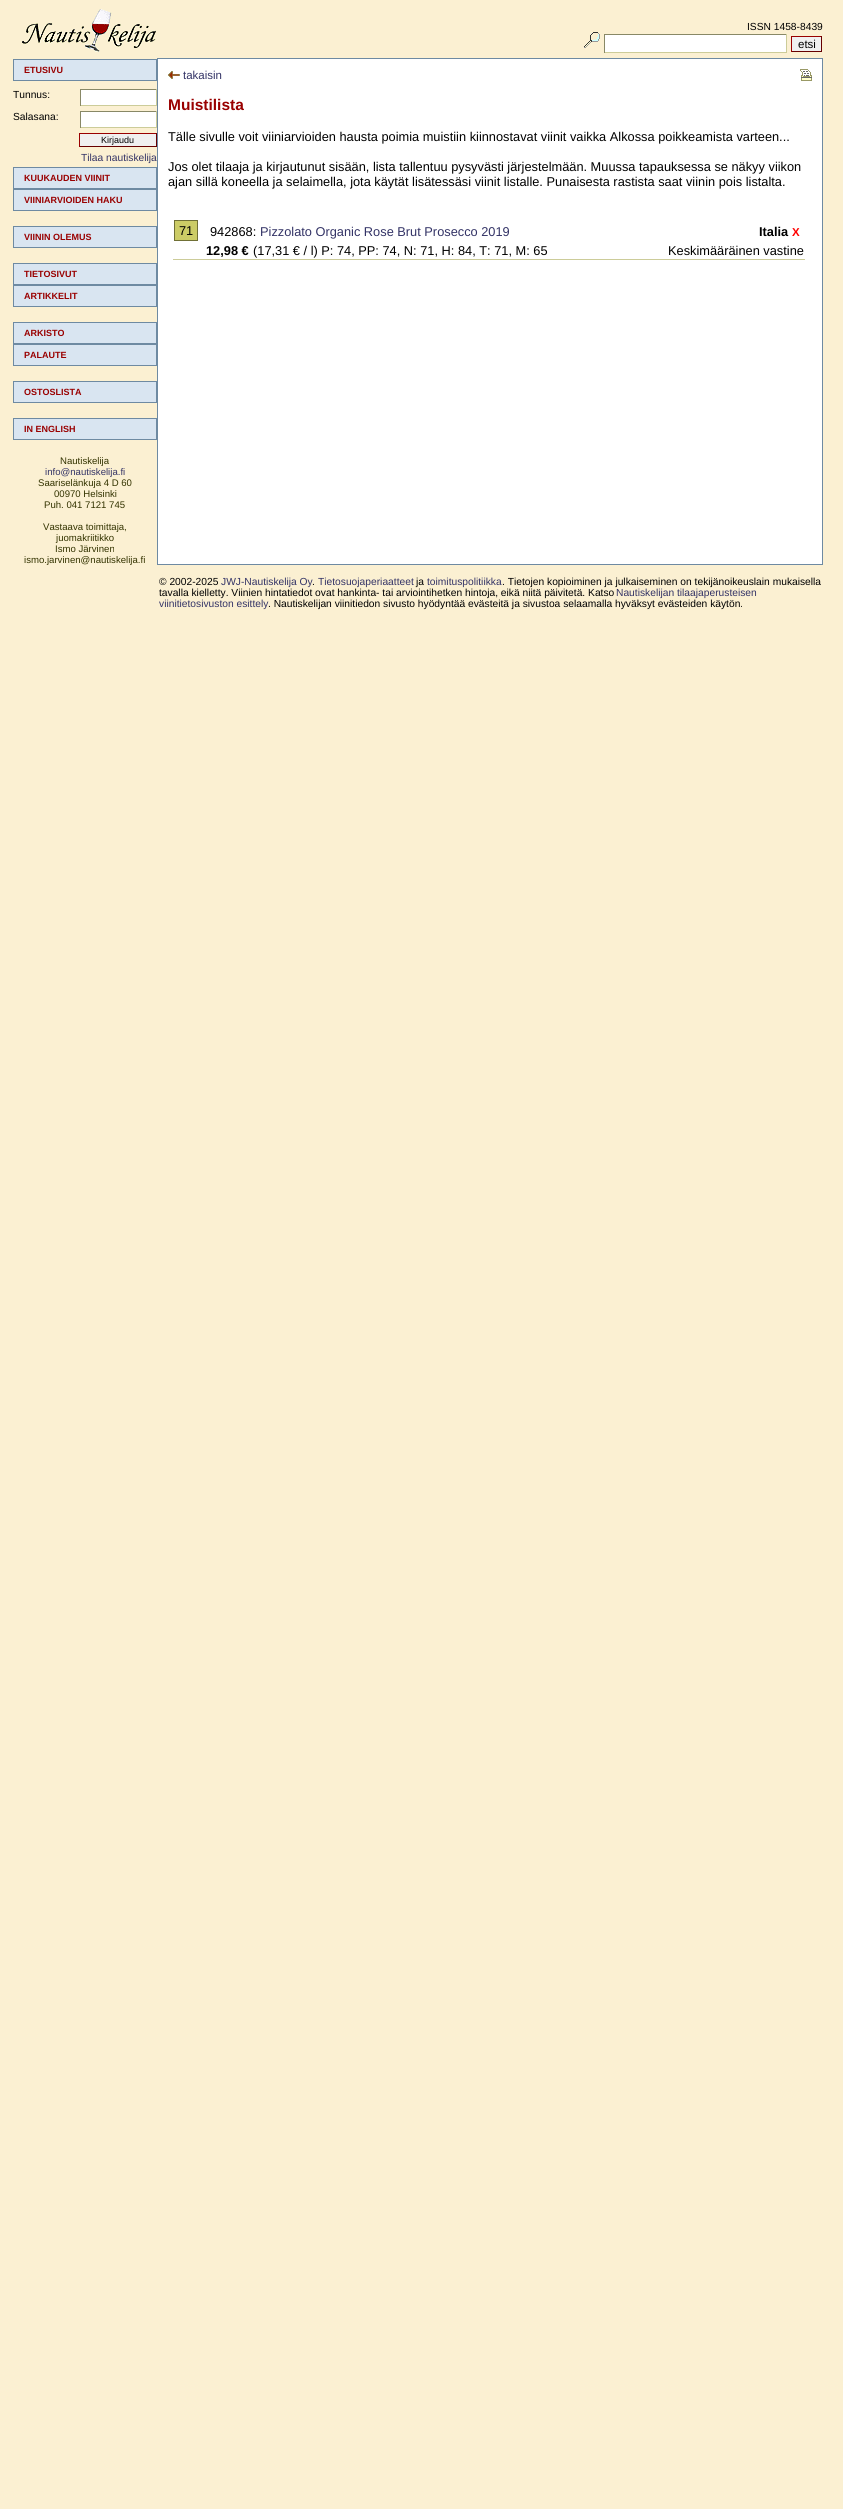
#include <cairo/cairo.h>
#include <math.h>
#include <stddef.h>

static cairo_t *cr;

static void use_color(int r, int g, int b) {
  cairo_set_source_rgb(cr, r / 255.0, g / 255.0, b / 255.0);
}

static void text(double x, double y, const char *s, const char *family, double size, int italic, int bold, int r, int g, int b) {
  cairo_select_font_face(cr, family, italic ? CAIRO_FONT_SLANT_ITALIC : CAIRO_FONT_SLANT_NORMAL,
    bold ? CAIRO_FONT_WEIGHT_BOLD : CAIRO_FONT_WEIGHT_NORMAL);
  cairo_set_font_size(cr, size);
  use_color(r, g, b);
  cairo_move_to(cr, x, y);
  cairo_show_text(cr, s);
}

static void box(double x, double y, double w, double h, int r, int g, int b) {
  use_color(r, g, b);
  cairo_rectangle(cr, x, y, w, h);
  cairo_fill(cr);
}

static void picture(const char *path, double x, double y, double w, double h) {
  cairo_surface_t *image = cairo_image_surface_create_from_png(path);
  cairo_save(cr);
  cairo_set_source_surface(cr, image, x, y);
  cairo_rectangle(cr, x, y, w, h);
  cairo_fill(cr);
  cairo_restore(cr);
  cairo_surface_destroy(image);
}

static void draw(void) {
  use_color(251, 240, 210);
  cairo_paint(cr);
  picture("img_01.png", 22, 9, 134, 43);
  picture("img_02.png", 584, 32, 16, 16);
  box(605, 35, 181, 17, 255, 255, 255);
  box(604, 34, 183, 1, 136, 136, 102);
  box(786, 34, 1, 19, 204, 204, 153);
  box(604, 52, 183, 1, 204, 204, 153);
  box(604, 34, 1, 19, 136, 136, 102);
  box(792, 37, 29, 14, 240, 240, 240);
  box(791, 36, 31, 1, 153, 0, 0);
  box(821, 36, 1, 16, 102, 0, 0);
  box(791, 51, 31, 1, 102, 0, 0);
  box(791, 36, 1, 16, 153, 0, 0);
  use_color(217, 229, 241);
  cairo_rectangle(cr, 13.5, 59.5, 143, 21);
  cairo_fill_preserve(cr);
  use_color(110, 138, 162);
  cairo_set_line_width(cr, 1);
  cairo_stroke(cr);
  box(81, 90, 75, 15, 255, 255, 255);
  box(80, 89, 77, 1, 136, 136, 102);
  box(156, 89, 1, 17, 204, 204, 153);
  box(80, 105, 77, 1, 204, 204, 153);
  box(80, 89, 1, 17, 136, 136, 102);
  box(81, 112, 75, 15, 255, 255, 255);
  box(80, 111, 77, 1, 136, 136, 102);
  box(156, 111, 1, 17, 204, 204, 153);
  box(80, 127, 77, 1, 204, 204, 153);
  box(80, 111, 1, 17, 136, 136, 102);
  box(80, 134, 76, 12, 240, 240, 240);
  box(79, 133, 78, 1, 153, 0, 0);
  box(156, 133, 1, 14, 102, 0, 0);
  box(79, 146, 78, 1, 102, 0, 0);
  box(79, 133, 1, 14, 153, 0, 0);
  use_color(217, 229, 241);
  cairo_rectangle(cr, 13.5, 167.5, 143, 21);
  cairo_fill_preserve(cr);
  use_color(110, 138, 162);
  cairo_stroke(cr);
  use_color(217, 229, 241);
  cairo_rectangle(cr, 13.5, 189.5, 143, 21);
  cairo_fill_preserve(cr);
  use_color(110, 138, 162);
  cairo_stroke(cr);
  use_color(217, 229, 241);
  cairo_rectangle(cr, 13.5, 226.5, 143, 21);
  cairo_fill_preserve(cr);
  use_color(110, 138, 162);
  cairo_stroke(cr);
  use_color(217, 229, 241);
  cairo_rectangle(cr, 13.5, 263.5, 143, 21);
  cairo_fill_preserve(cr);
  use_color(110, 138, 162);
  cairo_stroke(cr);
  use_color(217, 229, 241);
  cairo_rectangle(cr, 13.5, 285.5, 143, 21);
  cairo_fill_preserve(cr);
  use_color(110, 138, 162);
  cairo_stroke(cr);
  use_color(217, 229, 241);
  cairo_rectangle(cr, 13.5, 322.5, 143, 21);
  cairo_fill_preserve(cr);
  use_color(110, 138, 162);
  cairo_stroke(cr);
  use_color(217, 229, 241);
  cairo_rectangle(cr, 13.5, 344.5, 143, 21);
  cairo_fill_preserve(cr);
  use_color(110, 138, 162);
  cairo_stroke(cr);
  use_color(217, 229, 241);
  cairo_rectangle(cr, 13.5, 381.5, 143, 21);
  cairo_fill_preserve(cr);
  use_color(110, 138, 162);
  cairo_stroke(cr);
  use_color(217, 229, 241);
  cairo_rectangle(cr, 13.5, 418.5, 143, 21);
  cairo_fill_preserve(cr);
  use_color(110, 138, 162);
  cairo_stroke(cr);
  box(158, 59, 664, 505, 255, 255, 255);
  box(157, 58, 666, 1, 110, 138, 162);
  box(822, 58, 1, 507, 110, 138, 162);
  box(157, 564, 666, 1, 110, 138, 162);
  box(157, 58, 1, 507, 110, 138, 162);
  picture("img_03.png", 168, 71, 12, 8);
  picture("img_04.png", 800, 69, 12, 12);
  use_color(204, 204, 102);
  cairo_rectangle(cr, 174.5, 220.5, 23, 20);
  cairo_fill_preserve(cr);
  use_color(112, 112, 54);
  cairo_stroke(cr);
  box(173, 259, 632, 1, 204, 204, 153);
  text(747, 30, "ISSN 1458-8439", "Liberation Sans", 10.25, 0, 0, 0, 0, 0);
  text(798, 48, "etsi", "Liberation Sans", 11.5, 0, 0, 0, 0, 0);
  text(24, 73, "ETUSIVU", "Liberation Sans", 9, 0, 1, 153, 0, 0);
  text(13, 98, "Tunnus:", "Liberation Sans", 10.25, 0, 0, 0, 0, 0);
  text(13, 120, "Salasana:", "Liberation Sans", 10.25, 0, 0, 0, 0, 0);
  text(101, 143, "Kirjaudu", "Liberation Sans", 9, 0, 0, 0, 0, 0);
  text(81, 161, "Tilaa nautiskelija", "Liberation Sans", 10.25, 0, 0, 51, 51, 102);
  text(24, 181, "KUUKAUDEN VIINIT", "Liberation Sans", 9, 0, 1, 153, 0, 0);
  text(24, 203, "VIINIARVIOIDEN HAKU", "Liberation Sans", 9, 0, 1, 153, 0, 0);
  text(24, 240, "VIININ OLEMUS", "Liberation Sans", 9, 0, 1, 153, 0, 0);
  text(24, 277, "TIETOSIVUT", "Liberation Sans", 9, 0, 1, 153, 0, 0);
  text(24, 299, "ARTIKKELIT", "Liberation Sans", 9, 0, 1, 153, 0, 0);
  text(24, 336, "ARKISTO", "Liberation Sans", 9, 0, 1, 153, 0, 0);
  text(24, 358, "PALAUTE", "Liberation Sans", 9, 0, 1, 153, 0, 0);
  text(24, 395, "OSTOSLISTA", "Liberation Sans", 9, 0, 1, 153, 0, 0);
  text(24, 432, "IN ENGLISH", "Liberation Sans", 9, 0, 1, 153, 0, 0);
  text(60, 464, "Nautiskelija", "Liberation Sans", 9.6, 0, 0, 51, 51, 0);
  text(45, 475, "info@nautiskelija.fi", "Liberation Sans", 9.6, 0, 0, 51, 51, 102);
  text(38, 486, "Saariselänkuja 4 D 60", "Liberation Sans", 9.6, 0, 0, 51, 51, 0);
  text(54, 497, "00970 Helsinki", "Liberation Sans", 9.6, 0, 0, 51, 51, 0);
  text(44, 508, "Puh. 041 7121 745", "Liberation Sans", 9.6, 0, 0, 51, 51, 0);
  text(43, 530, "Vastaava toimittaja,", "Liberation Sans", 9.6, 0, 0, 51, 51, 0);
  text(56, 541, "juomakriitikko", "Liberation Sans", 9.6, 0, 0, 51, 51, 0);
  text(55, 552, "Ismo Järvinen", "Liberation Sans", 9.6, 0, 0, 51, 51, 0);
  text(24, 563, "ismo.jarvinen@nautiskelija.fi", "Liberation Sans", 9.6, 0, 0, 51, 51, 0);
  text(183, 79, "takaisin", "Liberation Sans", 11.5, 0, 0, 51, 51, 102);
  text(168, 110, "Muistilista", "Liberation Sans", 15.5, 0, 1, 153, 0, 0);
  text(168, 141, "Tälle sivulle voit viiniarvioiden hausta poimia muistiin kiinnostavat viinit vaikka Alkossa poikkeamista varteen...", "Liberation Sans", 12.8, 0, 0, 0, 0, 0);
  text(168, 171, "Jos olet tilaaja ja kirjautunut sisään, lista tallentuu pysyvästi järjestelmään. Muussa tapauksessa se näkyy viikon", "Liberation Sans", 12.8, 0, 0, 0, 0, 0);
  text(168, 186, "ajan sillä koneella ja selaimella, jota käytät lisätessäsi viinit listalle. Punaisesta rastista saat viinin pois listalta.", "Liberation Sans", 12.8, 0, 0, 0, 0, 0);
  text(179, 235, "71", "Liberation Sans", 12.8, 0, 0, 0, 0, 0);
  text(210, 236, "942868:", "Liberation Sans", 12.8, 0, 0, 0, 0, 0);
  text(260, 236, "Pizzolato Organic Rose Brut Prosecco 2019", "Liberation Sans", 12.8, 0, 0, 51, 51, 102);
  text(759, 236, "Italia", "Liberation Sans", 12.8, 0, 1, 0, 0, 0);
  text(792, 236, "X", "Liberation Sans", 11.5, 0, 1, 255, 0, 0);
  text(206, 255, "12,98 €", "Liberation Sans", 12.8, 0, 1, 0, 0, 0);
  text(253, 255, "(17,31 € / l) P: 74, PP: 74, N: 71, H: 84, T: 71, M: 65", "Liberation Sans", 12.8, 0, 0, 0, 0, 0);
  text(668, 255, "Keskimääräinen vastine", "Liberation Sans", 12.8, 0, 0, 0, 0, 0);
  text(159, 585, "© 2002-2025", "Liberation Sans", 10.25, 0, 0, 0, 0, 0);
  text(221, 585, "JWJ-Nautiskelija Oy", "Liberation Sans", 10.25, 0, 0, 51, 51, 102);
  text(312, 585, ".", "Liberation Sans", 10.25, 0, 0, 0, 0, 0);
  text(318, 585, "Tietosuojaperiaatteet", "Liberation Sans", 10.25, 0, 0, 51, 51, 102);
  text(416, 585, "ja", "Liberation Sans", 10.25, 0, 0, 0, 0, 0);
  text(427, 585, "toimituspolitiikka", "Liberation Sans", 10.25, 0, 0, 51, 51, 102);
  text(502, 585, ". Tietojen kopioiminen ja julkaiseminen on tekijänoikeuslain mukaisella", "Liberation Sans", 10.25, 0, 0, 0, 0, 0);
  text(159, 596, "tavalla kielletty. Viinien hintatiedot ovat hankinta- tai arviointihetken hintoja, eikä niitä päivitetä. Katso", "Liberation Sans", 10.25, 0, 0, 0, 0, 0);
  text(616, 596, "Nautiskelijan tilaajaperusteisen", "Liberation Sans", 10.25, 0, 0, 51, 51, 102);
  text(159, 607, "viinitietosivuston esittely", "Liberation Sans", 10.25, 0, 0, 51, 51, 102);
  text(268, 607, ". Nautiskelijan viinitiedon sivusto hyödyntää evästeitä ja sivustoa selaamalla hyväksyt evästeiden käytön.", "Liberation Sans", 10.25, 0, 0, 0, 0, 0);
}

int main(void) {
  cairo_surface_t *surface = cairo_image_surface_create(CAIRO_FORMAT_RGB24, 843, 2509);
  cr = cairo_create(surface);
  cairo_font_options_t *options = cairo_font_options_create();
  cairo_font_options_set_hint_metrics(options, CAIRO_HINT_METRICS_OFF);
  cairo_font_options_set_hint_style(options, CAIRO_HINT_STYLE_NONE);
  cairo_set_font_options(cr, options);
  cairo_set_miter_limit(cr, 4);
  draw();
  cairo_surface_write_to_png(surface, "out.png");
  cairo_font_options_destroy(options);
  cairo_destroy(cr);
  cairo_surface_destroy(surface);
  return 0;
}
